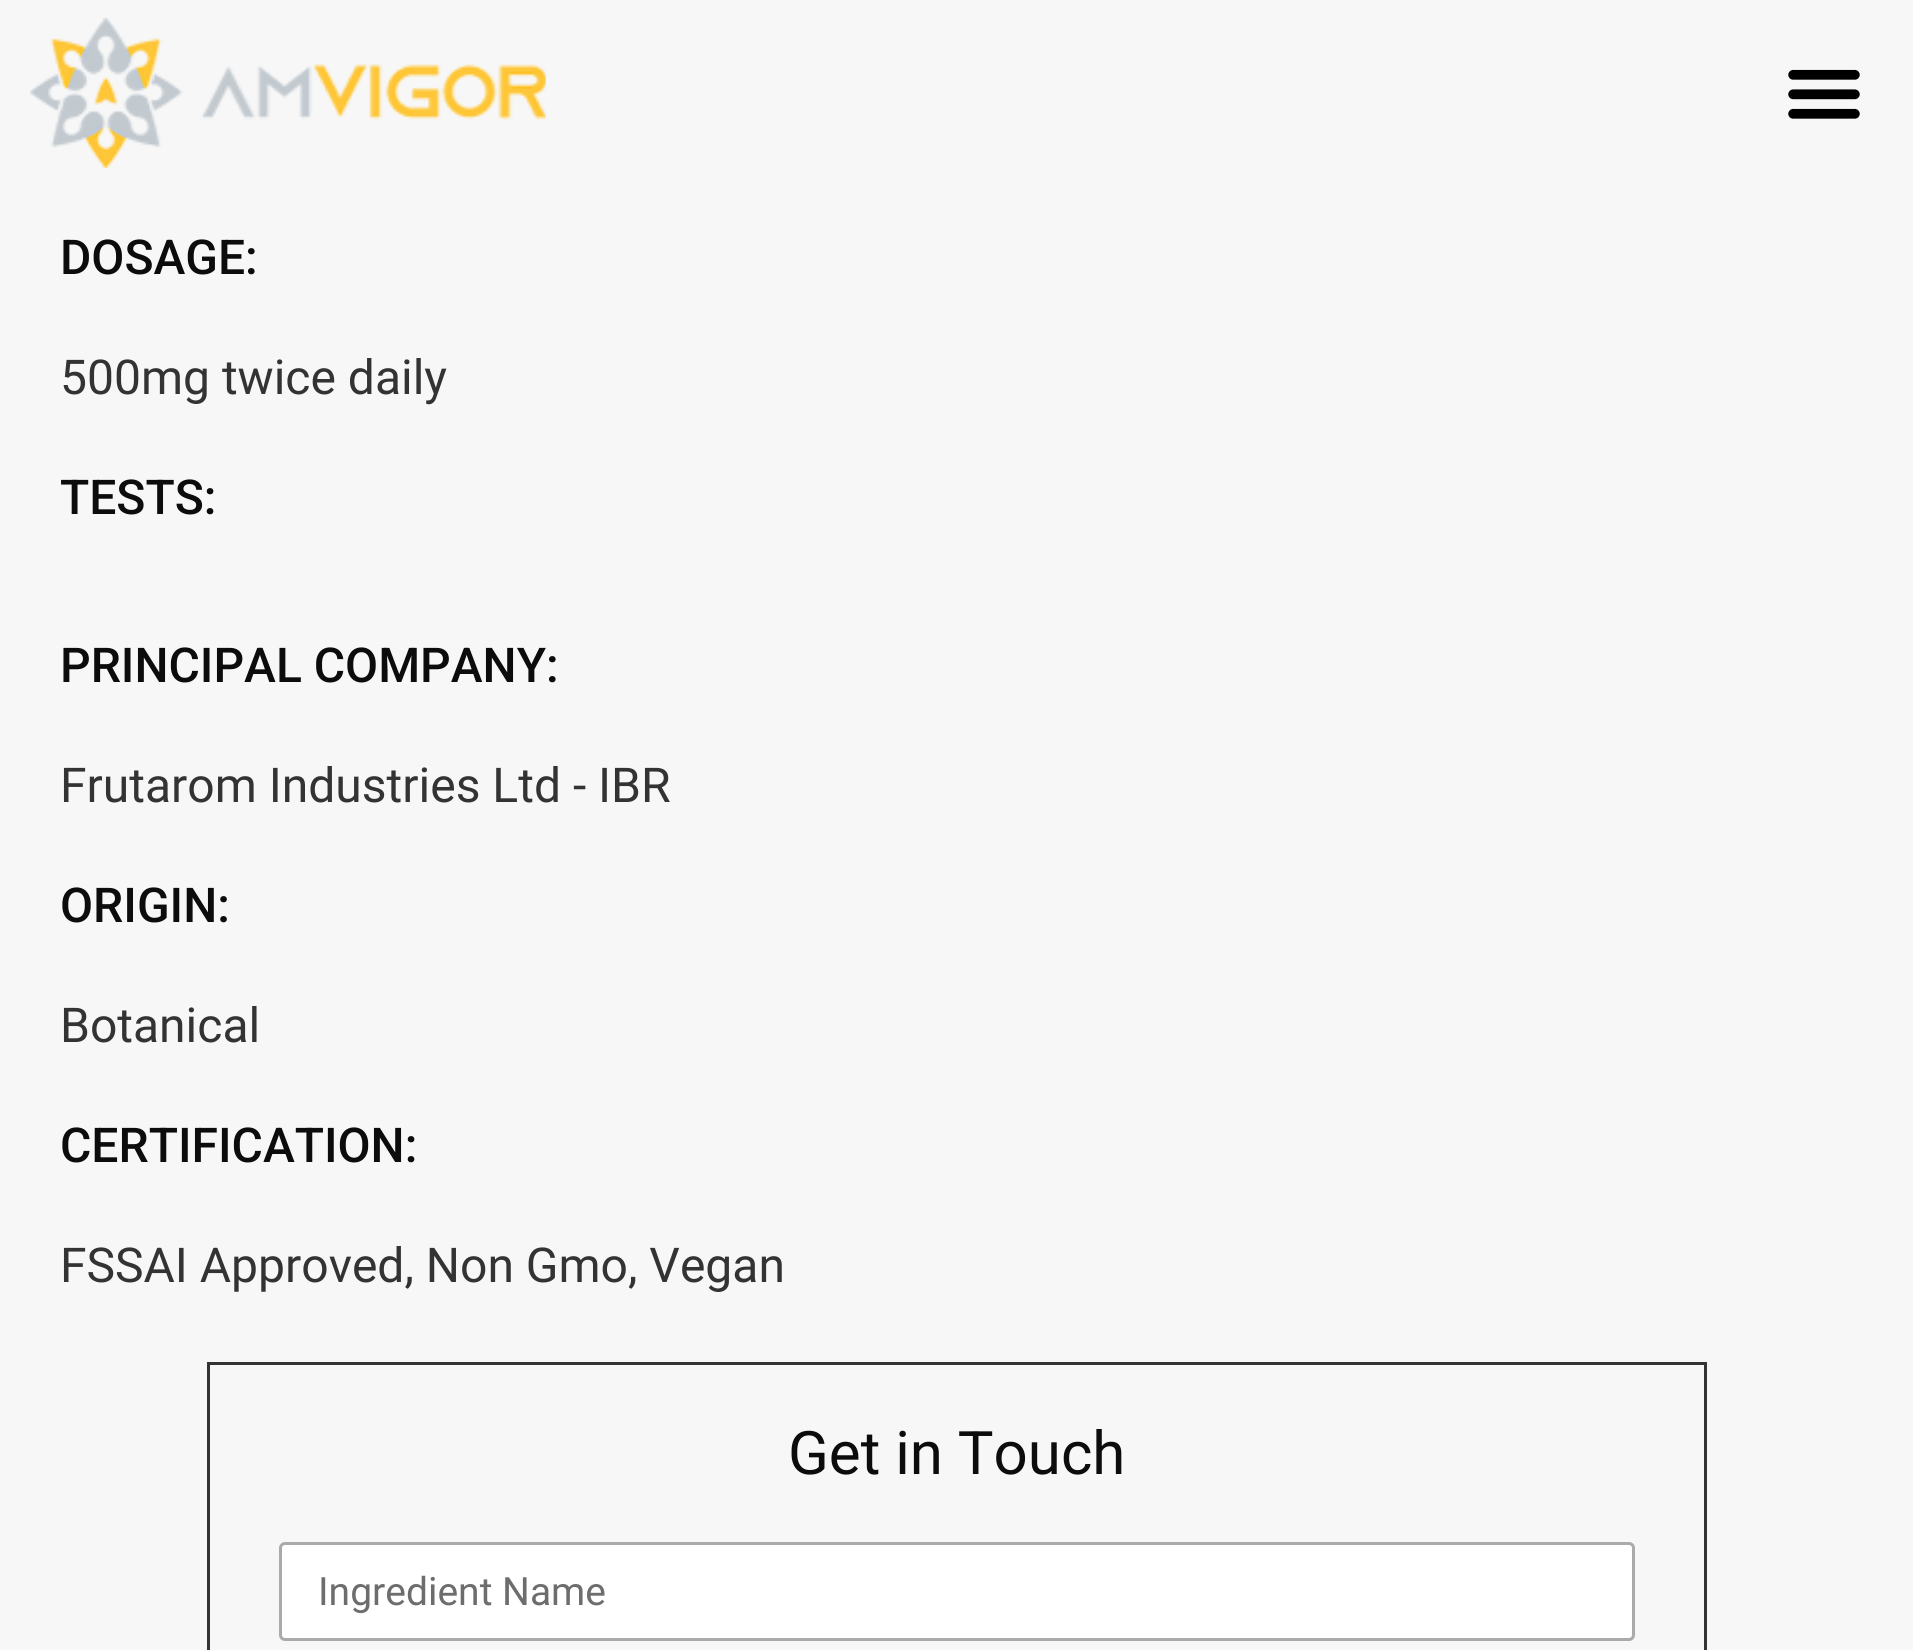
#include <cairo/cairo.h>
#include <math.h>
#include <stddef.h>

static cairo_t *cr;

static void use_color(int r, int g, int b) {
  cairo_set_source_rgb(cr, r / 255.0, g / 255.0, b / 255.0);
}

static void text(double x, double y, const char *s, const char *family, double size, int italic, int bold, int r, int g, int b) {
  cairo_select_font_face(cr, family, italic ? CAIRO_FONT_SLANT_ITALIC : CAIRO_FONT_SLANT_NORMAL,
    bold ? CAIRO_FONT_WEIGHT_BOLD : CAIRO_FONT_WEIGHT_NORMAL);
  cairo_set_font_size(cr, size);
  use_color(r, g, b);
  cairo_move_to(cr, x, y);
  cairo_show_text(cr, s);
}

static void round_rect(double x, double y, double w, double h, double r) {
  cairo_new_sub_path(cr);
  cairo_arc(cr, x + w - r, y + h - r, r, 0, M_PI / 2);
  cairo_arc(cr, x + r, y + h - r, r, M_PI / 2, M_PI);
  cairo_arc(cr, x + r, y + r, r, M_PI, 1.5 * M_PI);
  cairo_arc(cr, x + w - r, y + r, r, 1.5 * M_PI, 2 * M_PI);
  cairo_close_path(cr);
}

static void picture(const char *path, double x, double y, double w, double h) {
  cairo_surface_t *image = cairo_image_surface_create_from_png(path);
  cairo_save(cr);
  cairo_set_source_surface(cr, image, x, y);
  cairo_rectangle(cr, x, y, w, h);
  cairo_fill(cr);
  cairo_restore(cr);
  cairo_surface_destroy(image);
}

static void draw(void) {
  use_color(247, 247, 247);
  cairo_paint(cr);
  picture("img_01.png", 30, 18, 516, 150);
  picture("img_02.png", 1788, 69, 72, 50);
  cairo_rectangle(cr, 208.5, 1363.5, 1497, 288);
  use_color(51, 51, 51);
  cairo_set_line_width(cr, 3);
  cairo_stroke(cr);
  use_color(255, 255, 255);
  round_rect(280.5, 1543.5, 1353, 96, 4.5);
  cairo_fill_preserve(cr);
  use_color(170, 170, 170);
  cairo_stroke(cr);
  text(60, 274, "DOSAGE:", "Roboto Medium", 48, 0, 0, 12, 12, 12);
  text(60, 394, "500mg twice daily", "Roboto", 48, 0, 0, 51, 51, 51);
  text(60, 514, "TESTS:", "Roboto Medium", 48, 0, 0, 12, 12, 12);
  text(60, 682, "PRINCIPAL COMPANY:", "Roboto Medium", 48, 0, 0, 12, 12, 12);
  text(60, 802, "Frutarom Industries Ltd - IBR", "Roboto", 48, 0, 0, 51, 51, 51);
  text(60, 922, "ORIGIN:", "Roboto Medium", 48, 0, 0, 12, 12, 12);
  text(60, 1042, "Botanical", "Roboto", 48, 0, 0, 51, 51, 51);
  text(60, 1162, "CERTIFICATION:", "Roboto Medium", 48, 0, 0, 12, 12, 12);
  text(60, 1282, "FSSAI Approved, Non Gmo, Vegan", "Roboto", 48, 0, 0, 51, 51, 51);
  text(788, 1474, "Get in Touch", "Roboto", 60, 0, 0, 12, 12, 12);
  text(318, 1605, "Ingredient Name", "Roboto", 39, 0, 0, 109, 109, 109);
}

int main(void) {
  cairo_surface_t *surface = cairo_image_surface_create(CAIRO_FORMAT_RGB24, 1913, 1650);
  cr = cairo_create(surface);
  cairo_font_options_t *options = cairo_font_options_create();
  cairo_font_options_set_hint_metrics(options, CAIRO_HINT_METRICS_OFF);
  cairo_font_options_set_hint_style(options, CAIRO_HINT_STYLE_NONE);
  cairo_set_font_options(cr, options);
  cairo_set_miter_limit(cr, 4);
  draw();
  cairo_surface_write_to_png(surface, "out.png");
  cairo_font_options_destroy(options);
  cairo_destroy(cr);
  cairo_surface_destroy(surface);
  return 0;
}
